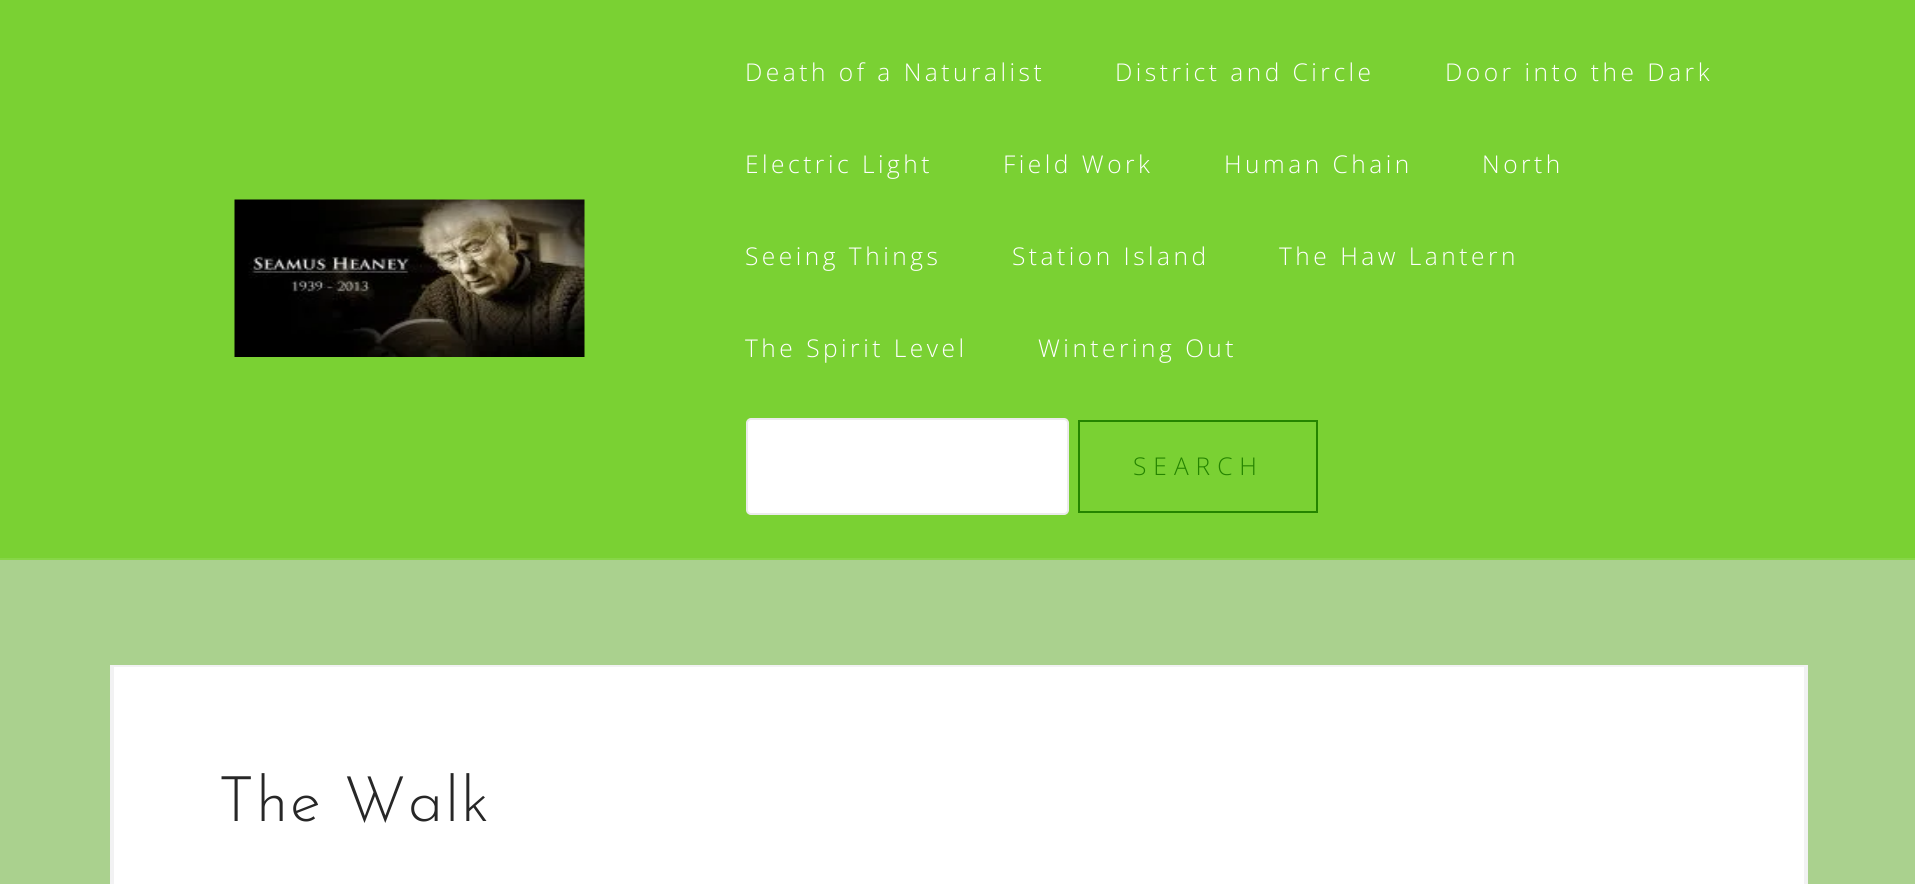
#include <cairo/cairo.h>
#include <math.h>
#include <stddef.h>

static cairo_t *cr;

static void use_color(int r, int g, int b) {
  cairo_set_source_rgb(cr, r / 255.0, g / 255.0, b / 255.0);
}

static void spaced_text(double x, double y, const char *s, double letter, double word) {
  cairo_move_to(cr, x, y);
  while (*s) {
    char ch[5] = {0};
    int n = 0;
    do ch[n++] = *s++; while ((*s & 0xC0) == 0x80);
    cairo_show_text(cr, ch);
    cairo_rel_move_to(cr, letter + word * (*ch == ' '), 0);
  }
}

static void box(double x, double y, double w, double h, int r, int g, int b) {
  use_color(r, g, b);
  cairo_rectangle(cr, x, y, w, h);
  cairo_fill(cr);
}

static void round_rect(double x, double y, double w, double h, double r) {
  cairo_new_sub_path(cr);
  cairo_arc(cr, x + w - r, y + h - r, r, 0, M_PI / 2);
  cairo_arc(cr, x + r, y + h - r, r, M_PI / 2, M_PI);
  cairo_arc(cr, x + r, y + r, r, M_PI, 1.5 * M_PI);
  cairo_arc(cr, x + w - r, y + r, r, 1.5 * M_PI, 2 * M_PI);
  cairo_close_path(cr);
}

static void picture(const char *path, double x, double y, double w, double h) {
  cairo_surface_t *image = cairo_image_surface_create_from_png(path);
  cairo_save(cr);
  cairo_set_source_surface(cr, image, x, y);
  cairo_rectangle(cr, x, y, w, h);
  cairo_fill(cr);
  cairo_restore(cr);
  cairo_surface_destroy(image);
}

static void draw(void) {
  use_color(170, 209, 142);
  cairo_paint(cr);
  box(0, 0, 1915, 558, 122, 209, 51);
  box(0, 558, 1915, 2, 135, 214, 71);
  picture("img_01.png", 234, 199, 351, 158);
  use_color(255, 255, 255);
  round_rect(747, 419, 321, 95, 4);
  cairo_fill_preserve(cr);
  use_color(235, 235, 235);
  cairo_stroke(cr);
  cairo_rectangle(cr, 1079, 421, 238, 91);
  use_color(37, 132, 0);
  cairo_stroke(cr);
  box(1806, 665, 2, 219, 242, 242, 243);
  box(110, 665, 2, 219, 242, 242, 243);
  use_color(255, 255, 255);
  cairo_rectangle(cr, 113, 666, 1692, 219);
  cairo_fill_preserve(cr);
  use_color(242, 242, 243);
  cairo_stroke(cr);
  cairo_select_font_face(cr, "Open Sans Light", CAIRO_FONT_SLANT_NORMAL, CAIRO_FONT_WEIGHT_NORMAL);
  cairo_set_font_size(cr, 24.5);
  use_color(255, 255, 255);
  spaced_text(745, 81, "Death of a Naturalist", 3.5, 0);
  spaced_text(1115, 81, "District and Circle", 3.5, 0);
  spaced_text(1445, 81, "Door into the Dark", 3.5, 0);
  spaced_text(745, 173, "Electric Light", 3.5, 0);
  spaced_text(1003, 173, "Field Work", 3.5, 0);
  spaced_text(1224, 173, "Human Chain", 3.5, 0);
  spaced_text(1482, 173, "North", 3.5, 0);
  spaced_text(745, 265, "Seeing Things", 3.5, 0);
  spaced_text(1012, 265, "Station Island", 3.5, 0);
  spaced_text(1279, 265, "The Haw Lantern", 3.5, 0);
  spaced_text(745, 357, "The Spirit Level", 3.5, 0);
  spaced_text(1038, 357, "Wintering Out", 3.5, 0);
  use_color(37, 132, 0);
  spaced_text(1133, 475, "SEARCH", 7, 0);
  cairo_select_font_face(cr, "Josefin Sans Thin", CAIRO_FONT_SLANT_NORMAL, CAIRO_FONT_WEIGHT_NORMAL);
  cairo_set_font_size(cr, 63);
  use_color(39, 39, 39);
  spaced_text(218, 821, "The Walk", 1.75, 0);
}

int main(void) {
  cairo_surface_t *surface = cairo_image_surface_create(CAIRO_FORMAT_RGB24, 1915, 884);
  cr = cairo_create(surface);
  cairo_font_options_t *options = cairo_font_options_create();
  cairo_font_options_set_hint_metrics(options, CAIRO_HINT_METRICS_OFF);
  cairo_font_options_set_hint_style(options, CAIRO_HINT_STYLE_NONE);
  cairo_set_font_options(cr, options);
  cairo_set_miter_limit(cr, 4);
  draw();
  cairo_surface_write_to_png(surface, "out.png");
  cairo_font_options_destroy(options);
  cairo_destroy(cr);
  cairo_surface_destroy(surface);
  return 0;
}
